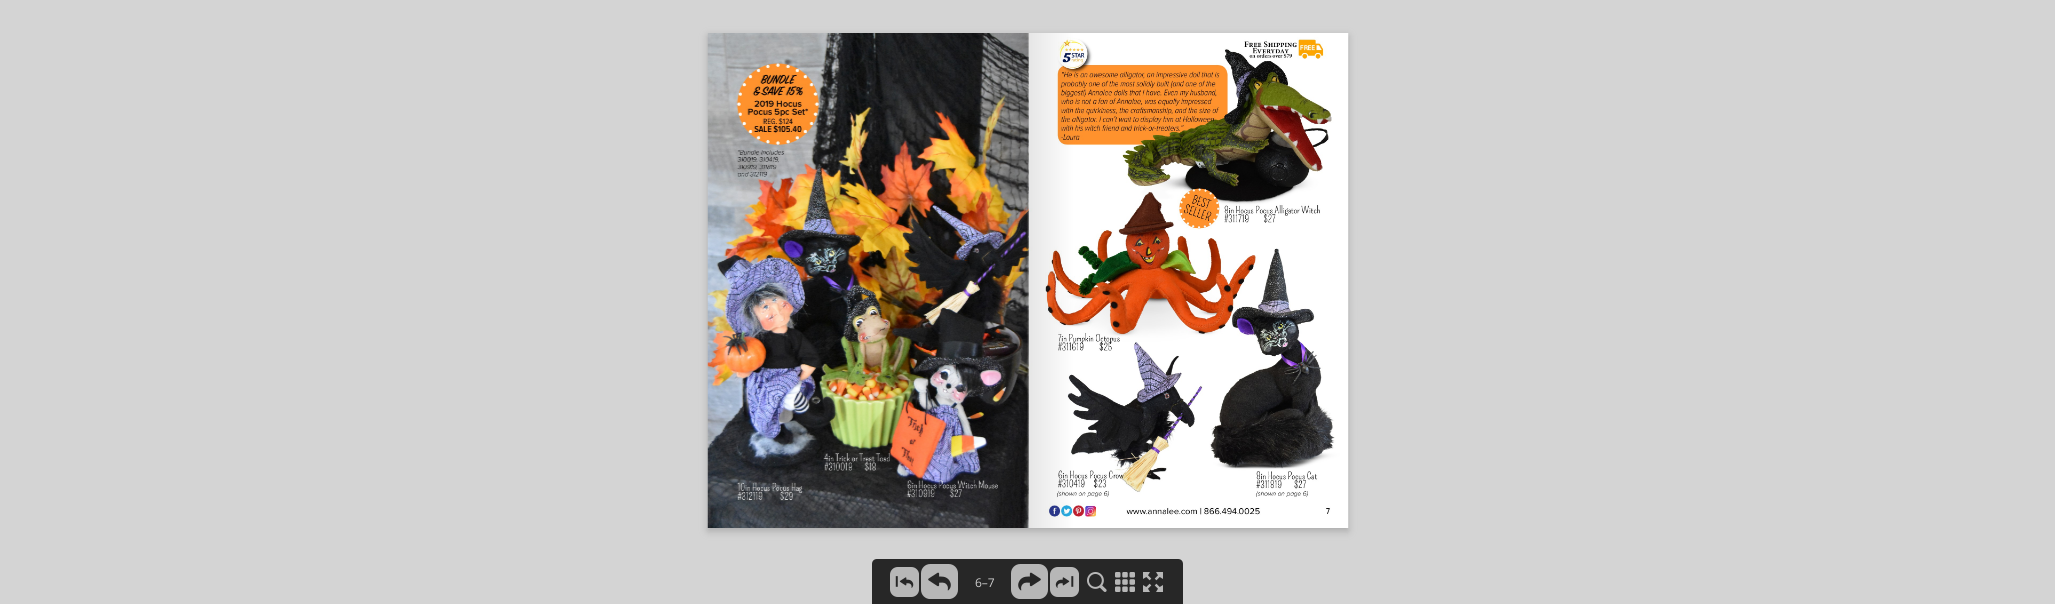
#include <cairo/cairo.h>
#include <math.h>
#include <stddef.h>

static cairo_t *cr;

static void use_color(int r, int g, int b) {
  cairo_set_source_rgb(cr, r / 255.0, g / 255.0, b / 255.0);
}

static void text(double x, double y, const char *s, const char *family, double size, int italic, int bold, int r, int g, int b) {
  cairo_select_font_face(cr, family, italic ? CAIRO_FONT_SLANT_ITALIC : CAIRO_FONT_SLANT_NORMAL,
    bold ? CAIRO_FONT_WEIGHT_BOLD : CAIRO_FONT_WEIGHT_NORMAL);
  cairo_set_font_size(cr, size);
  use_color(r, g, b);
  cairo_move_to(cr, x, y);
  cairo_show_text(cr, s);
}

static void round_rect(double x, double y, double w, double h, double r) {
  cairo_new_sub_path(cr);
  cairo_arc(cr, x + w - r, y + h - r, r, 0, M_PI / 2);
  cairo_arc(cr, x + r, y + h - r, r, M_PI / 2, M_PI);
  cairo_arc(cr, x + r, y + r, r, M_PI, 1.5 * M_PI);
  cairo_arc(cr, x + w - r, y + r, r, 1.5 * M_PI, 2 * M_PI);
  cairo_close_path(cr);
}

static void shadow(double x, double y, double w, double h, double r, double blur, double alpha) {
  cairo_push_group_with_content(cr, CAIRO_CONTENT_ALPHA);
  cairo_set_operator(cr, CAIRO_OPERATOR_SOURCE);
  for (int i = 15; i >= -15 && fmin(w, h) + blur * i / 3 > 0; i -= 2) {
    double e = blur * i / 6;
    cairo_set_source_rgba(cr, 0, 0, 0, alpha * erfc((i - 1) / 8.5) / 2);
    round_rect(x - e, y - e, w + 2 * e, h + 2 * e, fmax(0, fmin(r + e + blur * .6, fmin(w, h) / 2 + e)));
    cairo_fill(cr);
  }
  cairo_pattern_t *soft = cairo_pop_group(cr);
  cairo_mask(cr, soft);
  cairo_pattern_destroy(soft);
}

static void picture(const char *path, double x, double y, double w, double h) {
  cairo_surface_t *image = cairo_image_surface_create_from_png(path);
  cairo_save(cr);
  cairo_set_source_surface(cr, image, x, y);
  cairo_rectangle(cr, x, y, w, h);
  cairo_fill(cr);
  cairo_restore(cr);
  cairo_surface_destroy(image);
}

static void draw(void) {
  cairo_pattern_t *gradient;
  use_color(212, 212, 212);
  cairo_paint(cr);
  use_color(170, 170, 170);
  shadow(708, 36, 640, 495, 0, 4, 1);
  picture("img_01.png", 707, 33, 321, 495);
  gradient = cairo_pattern_create_linear(982, 280, 1028, 280);
  cairo_pattern_add_color_stop_rgba(gradient, 0, 0, 0, 0, 0);
  cairo_pattern_add_color_stop_rgba(gradient, 1, 0, 0, 0, 0.15);
  cairo_set_source(cr, gradient);
  cairo_pattern_destroy(gradient);
  cairo_rectangle(cr, 989, 33, 39, 495);
  cairo_fill(cr);
  picture("img_02.png", 1028, 33, 321, 495);
  use_color(39, 39, 39);
  cairo_new_path(cr);
  cairo_move_to(cr, 877, 559);
  cairo_line_to(cr, 1178, 559);
  cairo_curve_to(cr, 1181, 559, 1183, 561, 1183, 564);
  cairo_line_to(cr, 1183, 604);
  cairo_line_to(cr, 872, 604);
  cairo_line_to(cr, 872, 564);
  cairo_curve_to(cr, 872, 561, 874, 559, 877, 559);
  cairo_close_path(cr);
  cairo_fill(cr);
  picture("img_03.png", 890, 567, 29, 30);
  picture("img_04.png", 921, 564, 37, 35);
  picture("img_05.png", 1011, 564, 37, 35);
  picture("img_06.png", 1050, 567, 29, 30);
  picture("img_07.png", 1087, 572, 20, 20);
  picture("img_08.png", 1115, 572, 20, 20);
  picture("img_09.png", 1143, 572, 20, 20);
  text(975, 587, "6–7", "Open Sans", 12, 0, 0, 204, 204, 204);
}

int main(void) {
  cairo_surface_t *surface = cairo_image_surface_create(CAIRO_FORMAT_RGB24, 2055, 604);
  cr = cairo_create(surface);
  cairo_font_options_t *options = cairo_font_options_create();
  cairo_font_options_set_hint_metrics(options, CAIRO_HINT_METRICS_OFF);
  cairo_font_options_set_hint_style(options, CAIRO_HINT_STYLE_NONE);
  cairo_set_font_options(cr, options);
  cairo_set_miter_limit(cr, 4);
  draw();
  cairo_surface_write_to_png(surface, "out.png");
  cairo_font_options_destroy(options);
  cairo_destroy(cr);
  cairo_surface_destroy(surface);
  return 0;
}
